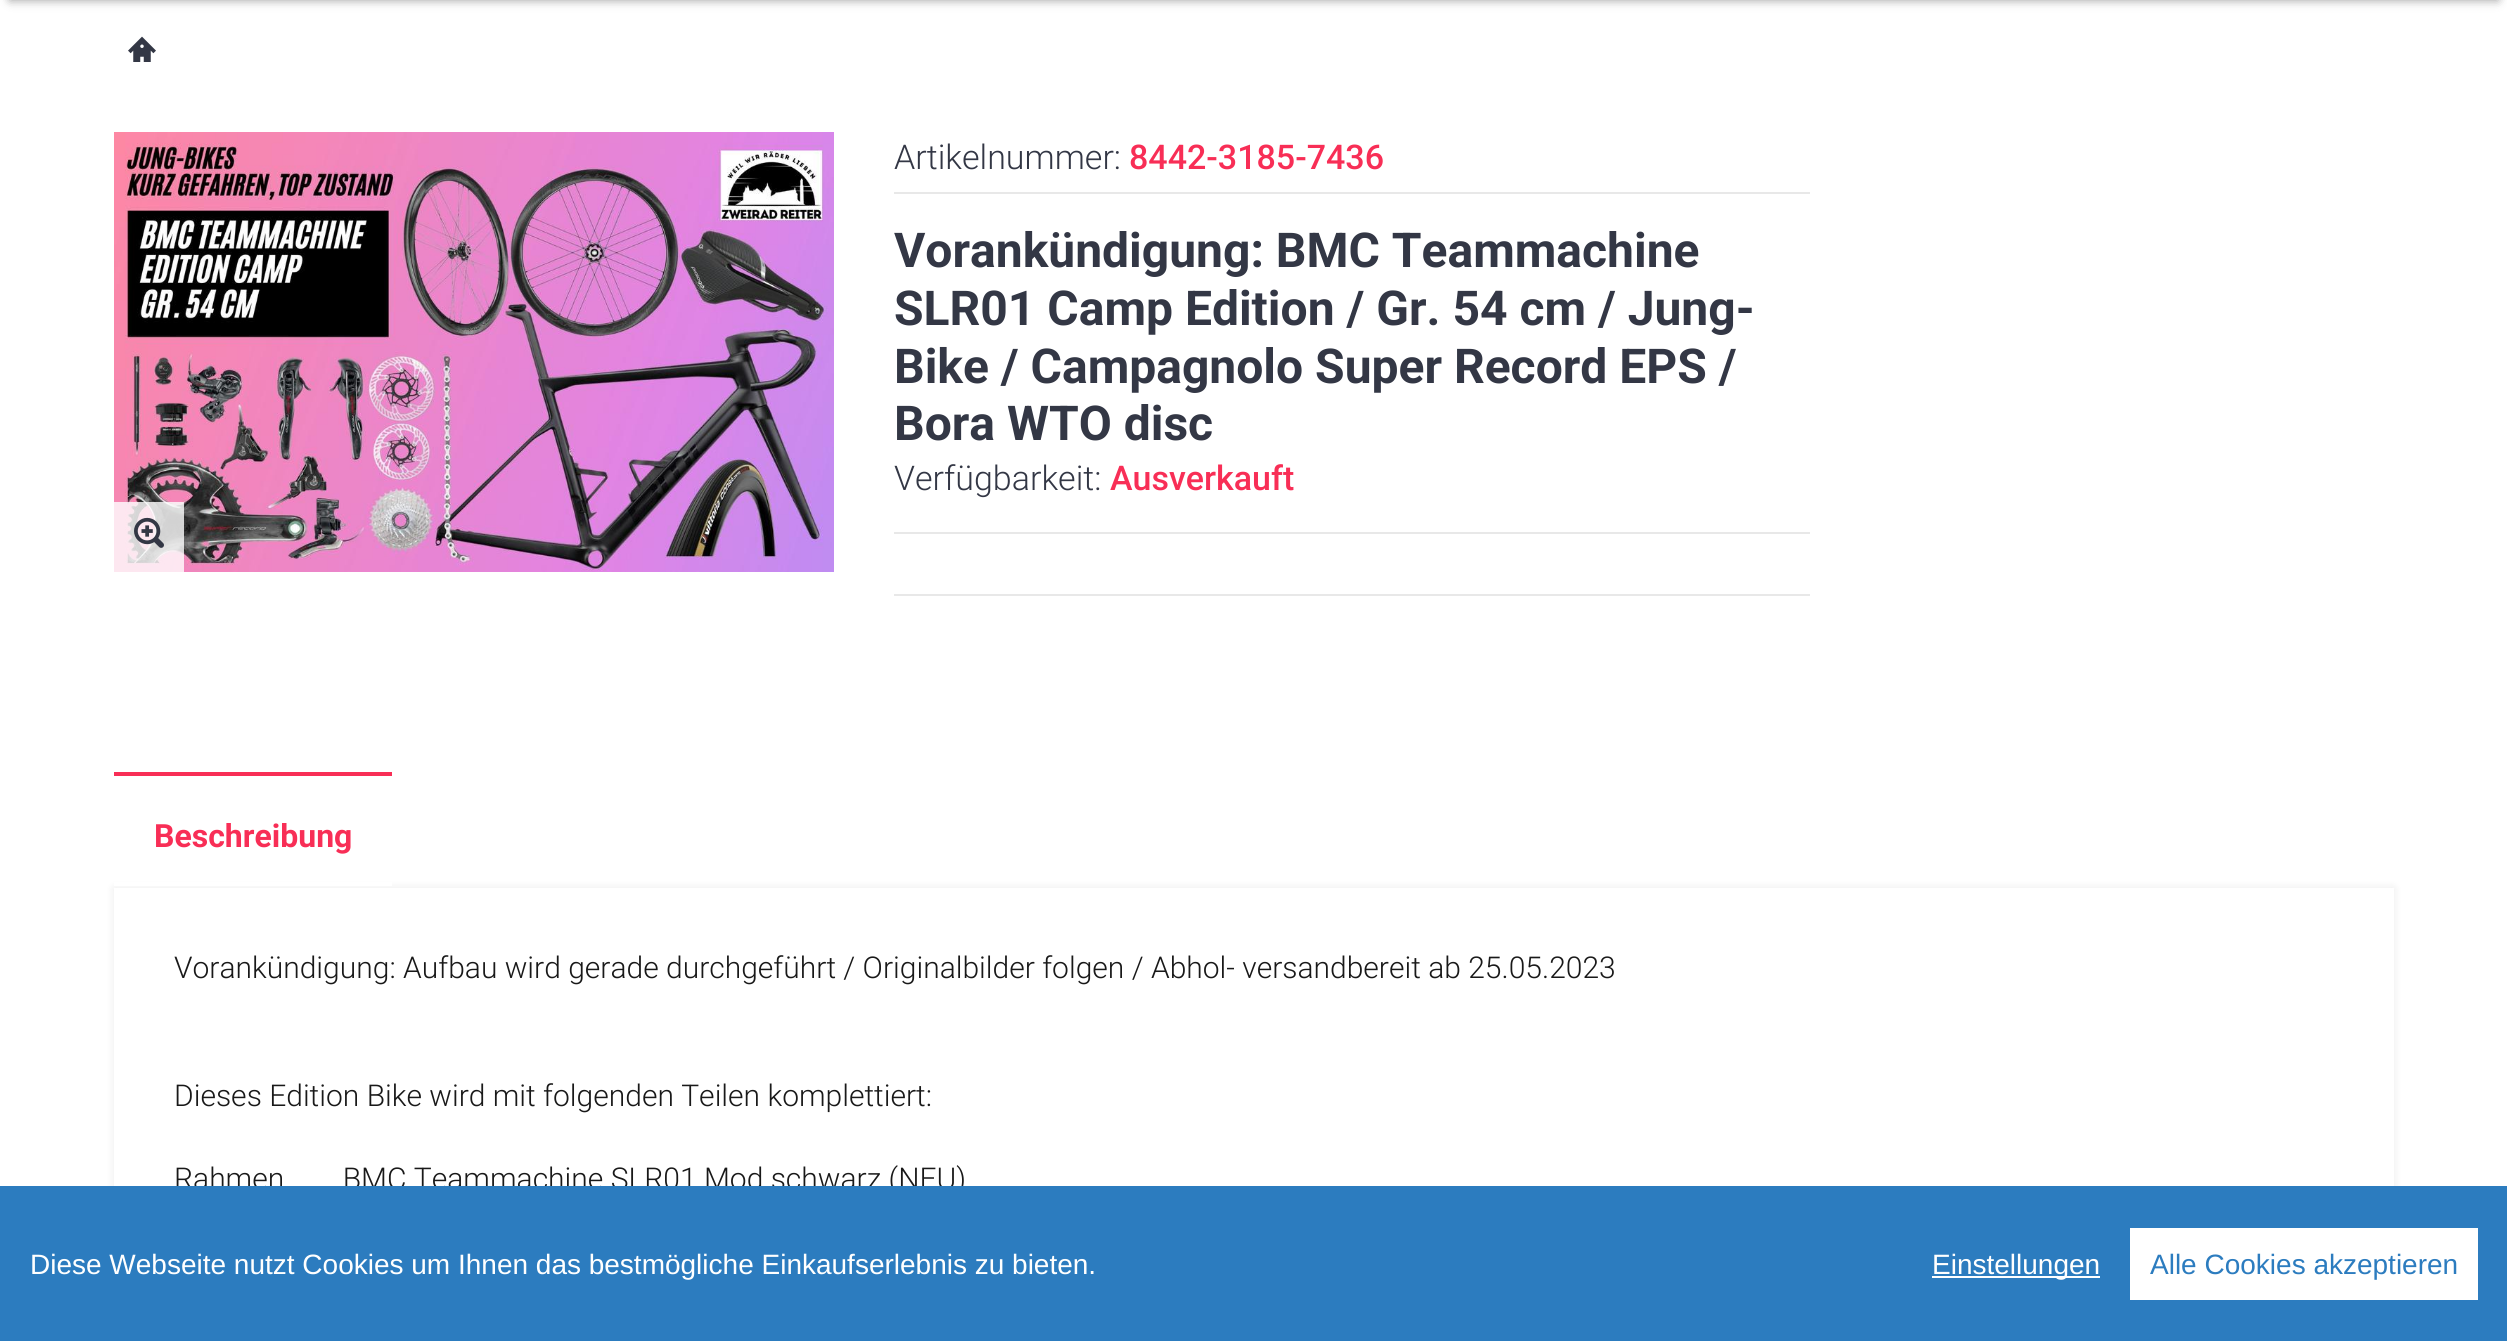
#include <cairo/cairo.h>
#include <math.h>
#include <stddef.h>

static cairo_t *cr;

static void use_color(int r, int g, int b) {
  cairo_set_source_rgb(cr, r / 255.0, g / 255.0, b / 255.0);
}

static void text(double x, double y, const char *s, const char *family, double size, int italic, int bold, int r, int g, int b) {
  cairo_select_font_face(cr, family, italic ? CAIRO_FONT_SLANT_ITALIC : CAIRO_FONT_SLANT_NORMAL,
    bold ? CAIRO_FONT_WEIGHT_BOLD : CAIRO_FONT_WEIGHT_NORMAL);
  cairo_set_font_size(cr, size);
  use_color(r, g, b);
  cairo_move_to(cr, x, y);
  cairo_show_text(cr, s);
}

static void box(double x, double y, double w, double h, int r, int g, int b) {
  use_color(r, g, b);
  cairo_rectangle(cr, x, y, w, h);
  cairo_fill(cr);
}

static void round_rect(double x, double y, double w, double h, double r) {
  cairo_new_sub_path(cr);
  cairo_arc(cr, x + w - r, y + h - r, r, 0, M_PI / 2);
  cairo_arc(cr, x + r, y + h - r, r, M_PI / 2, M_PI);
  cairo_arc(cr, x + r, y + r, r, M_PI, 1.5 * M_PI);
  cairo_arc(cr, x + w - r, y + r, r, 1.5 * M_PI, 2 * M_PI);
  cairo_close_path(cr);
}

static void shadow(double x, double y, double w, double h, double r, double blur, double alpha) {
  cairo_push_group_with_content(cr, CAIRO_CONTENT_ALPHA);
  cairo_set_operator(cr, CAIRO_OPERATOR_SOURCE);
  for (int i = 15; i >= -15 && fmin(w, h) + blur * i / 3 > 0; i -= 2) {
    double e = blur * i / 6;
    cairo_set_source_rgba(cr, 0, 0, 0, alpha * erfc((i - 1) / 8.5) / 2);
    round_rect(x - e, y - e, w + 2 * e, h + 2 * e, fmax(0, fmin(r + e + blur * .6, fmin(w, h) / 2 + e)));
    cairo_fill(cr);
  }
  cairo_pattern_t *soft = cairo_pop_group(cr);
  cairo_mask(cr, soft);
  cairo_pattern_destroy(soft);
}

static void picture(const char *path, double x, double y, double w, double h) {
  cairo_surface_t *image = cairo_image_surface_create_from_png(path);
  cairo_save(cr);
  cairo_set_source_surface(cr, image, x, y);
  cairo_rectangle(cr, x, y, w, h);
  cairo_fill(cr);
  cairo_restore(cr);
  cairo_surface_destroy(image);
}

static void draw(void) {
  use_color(255, 255, 255);
  cairo_paint(cr);
  use_color(0, 0, 0);
  shadow(10, -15, 2488, 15, 0, 5, 0.4);
  picture("img_01.png", 128, 36, 28, 26);
  picture("img_02.png", 114, 132, 720, 440);
  cairo_set_source_rgba(cr, 1, 1, 1, 0.8);
  cairo_rectangle(cr, 114, 502, 70, 70);
  cairo_fill(cr);
  picture("img_03.png", 134, 517, 30, 31);
  box(894, 192, 916, 2, 232, 232, 232);
  box(894, 532, 916, 2, 232, 232, 232);
  box(894, 594, 916, 2, 232, 232, 232);
  box(114, 772, 278, 4, 248, 46, 86);
  use_color(0, 0, 0);
  shadow(114, 888, 2280, 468, 0, 5, 0.08);
  box(114, 882, 278, 4, 255, 255, 255);
  box(114, 888, 2280, 298, 255, 255, 255);
  text(894, 169, "Artikelnummer:", "Roboto Light", 34, 0, 0, 51, 55, 69);
  text(1129, 169, "8442-3185-7436", "Roboto Medium", 34, 0, 0, 248, 46, 86);
  text(894, 267, "Vorankündigung: BMC Teammachine", "Roboto", 48, 0, 1, 51, 55, 69);
  text(894, 325, "SLR01 Camp Edition / Gr. 54 cm / Jung-", "Roboto", 48, 0, 1, 51, 55, 69);
  text(894, 383, "Bike / Campagnolo Super Record EPS /", "Roboto", 48, 0, 1, 51, 55, 69);
  text(894, 440, "Bora WTO disc", "Roboto", 48, 0, 1, 51, 55, 69);
  text(894, 490, "Verfügbarkeit:", "Roboto Light", 34, 0, 0, 51, 55, 69);
  text(1110, 490, "Ausverkauft", "Roboto Medium", 34, 0, 0, 248, 46, 86);
  text(154, 847, "Beschreibung", "Roboto", 32, 0, 1, 248, 46, 86);
  text(174, 978, "Vorankündigung: Aufbau wird gerade durchgeführt / Originalbilder folgen / Abhol- versandbereit ab 25.05.2023", "Roboto Light", 30, 0, 0, 25, 25, 25);
  text(174, 1106, "Dieses Edition Bike wird mit folgenden Teilen komplettiert:", "Roboto Light", 30, 0, 0, 25, 25, 25);
  text(174, 1189, "Rahmen        BMC Teammachine SLR01 Mod schwarz (NEU)", "Roboto Light", 30, 0, 0, 25, 25, 25);
  box(0, 1186, 2507, 155, 44, 124, 191);
  text(30, 1274, "Diese Webseite nutzt Cookies um Ihnen das bestmögliche Einkaufserlebnis zu bieten.", "Liberation Sans", 28, 0, 0, 255, 255, 255);
  box(1932, 1276, 168, 2, 255, 255, 255);
  text(1932, 1274, "Einstellungen", "Liberation Sans", 28, 0, 0, 255, 255, 255);
  box(2130, 1228, 348, 72, 255, 255, 255);
  text(2150, 1274, "Alle Cookies akzeptieren", "Liberation Sans", 28, 0, 0, 44, 124, 191);
}

int main(void) {
  cairo_surface_t *surface = cairo_image_surface_create(CAIRO_FORMAT_RGB24, 2507, 1341);
  cr = cairo_create(surface);
  cairo_font_options_t *options = cairo_font_options_create();
  cairo_font_options_set_hint_metrics(options, CAIRO_HINT_METRICS_OFF);
  cairo_font_options_set_hint_style(options, CAIRO_HINT_STYLE_NONE);
  cairo_set_font_options(cr, options);
  cairo_set_miter_limit(cr, 4);
  draw();
  cairo_surface_write_to_png(surface, "out.png");
  cairo_font_options_destroy(options);
  cairo_destroy(cr);
  cairo_surface_destroy(surface);
  return 0;
}
